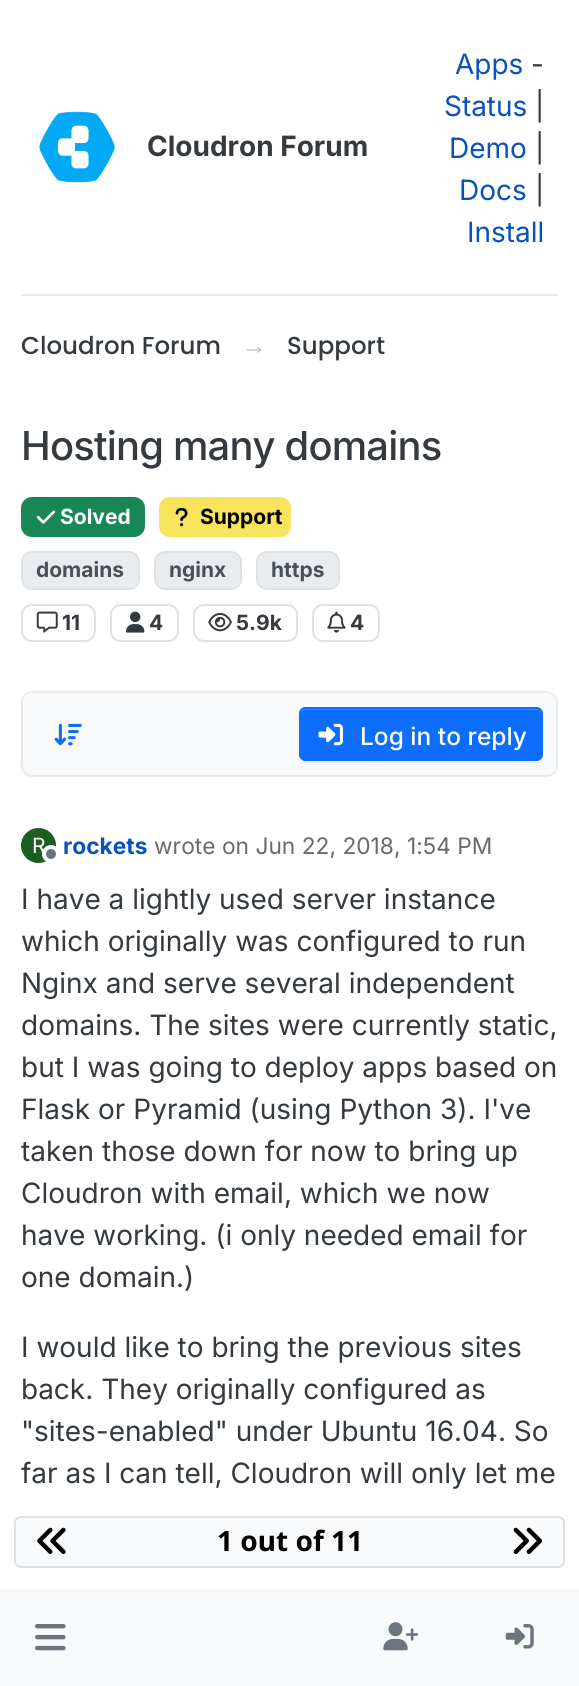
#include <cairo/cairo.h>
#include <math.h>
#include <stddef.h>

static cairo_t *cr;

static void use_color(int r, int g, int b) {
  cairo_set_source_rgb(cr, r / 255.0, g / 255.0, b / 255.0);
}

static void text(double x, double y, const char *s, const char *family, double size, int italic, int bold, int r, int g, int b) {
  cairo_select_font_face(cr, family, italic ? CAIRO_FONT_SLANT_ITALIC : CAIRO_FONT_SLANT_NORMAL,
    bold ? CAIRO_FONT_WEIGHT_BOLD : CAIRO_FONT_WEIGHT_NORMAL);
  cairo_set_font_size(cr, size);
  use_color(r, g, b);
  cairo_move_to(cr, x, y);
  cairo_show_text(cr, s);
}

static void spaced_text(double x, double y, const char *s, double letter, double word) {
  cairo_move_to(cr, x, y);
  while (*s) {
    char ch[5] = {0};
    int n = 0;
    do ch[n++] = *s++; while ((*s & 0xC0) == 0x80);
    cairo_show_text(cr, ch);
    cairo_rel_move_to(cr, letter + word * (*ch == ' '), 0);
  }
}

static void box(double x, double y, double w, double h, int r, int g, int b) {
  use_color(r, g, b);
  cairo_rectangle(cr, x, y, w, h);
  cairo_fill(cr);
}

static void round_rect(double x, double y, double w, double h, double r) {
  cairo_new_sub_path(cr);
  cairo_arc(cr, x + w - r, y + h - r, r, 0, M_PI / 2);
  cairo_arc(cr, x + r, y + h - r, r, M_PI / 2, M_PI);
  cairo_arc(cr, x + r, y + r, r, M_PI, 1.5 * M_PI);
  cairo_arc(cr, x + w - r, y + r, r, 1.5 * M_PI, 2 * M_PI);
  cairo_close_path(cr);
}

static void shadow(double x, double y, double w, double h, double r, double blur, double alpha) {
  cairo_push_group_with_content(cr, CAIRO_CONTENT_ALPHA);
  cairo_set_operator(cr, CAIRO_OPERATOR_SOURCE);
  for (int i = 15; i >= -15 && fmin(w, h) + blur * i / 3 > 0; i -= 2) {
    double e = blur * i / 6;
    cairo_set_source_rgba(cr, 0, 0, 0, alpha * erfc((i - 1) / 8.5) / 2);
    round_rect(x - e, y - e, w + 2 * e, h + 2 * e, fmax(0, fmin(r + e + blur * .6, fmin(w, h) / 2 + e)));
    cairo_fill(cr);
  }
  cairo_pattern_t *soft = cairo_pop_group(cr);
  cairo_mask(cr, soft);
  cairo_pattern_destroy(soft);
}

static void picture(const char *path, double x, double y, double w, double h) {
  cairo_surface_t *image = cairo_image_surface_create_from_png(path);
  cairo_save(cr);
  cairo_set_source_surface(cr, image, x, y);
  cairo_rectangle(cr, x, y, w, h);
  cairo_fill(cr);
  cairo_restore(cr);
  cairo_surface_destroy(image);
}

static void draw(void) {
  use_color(255, 255, 255);
  cairo_paint(cr);
  box(21, 294, 537, 2, 233, 236, 239);
  picture("img_01.png", 39, 111, 76, 72);
  use_color(25, 135, 84);
  round_rect(22, 498, 122, 38, 10);
  cairo_fill_preserve(cr);
  cairo_stroke(cr);
  picture("img_02.png", 36, 510, 20, 14);
  use_color(248, 228, 92);
  round_rect(160, 498, 130, 38, 10);
  cairo_fill_preserve(cr);
  cairo_stroke(cr);
  picture("img_03.png", 175, 507, 13, 20);
  use_color(233, 236, 239);
  round_rect(22, 552, 117, 37, 10);
  cairo_fill_preserve(cr);
  use_color(222, 226, 230);
  cairo_stroke(cr);
  use_color(233, 236, 239);
  round_rect(155, 552, 86, 37, 10);
  cairo_fill_preserve(cr);
  use_color(222, 226, 230);
  cairo_stroke(cr);
  use_color(233, 236, 239);
  round_rect(257, 552, 82, 37, 10);
  cairo_fill_preserve(cr);
  use_color(222, 226, 230);
  cairo_stroke(cr);
  round_rect(22, 605, 73, 36, 10);
  cairo_stroke(cr);
  picture("img_04.png", 36, 611, 22, 22);
  round_rect(111, 605, 67, 36, 10);
  cairo_stroke(cr);
  picture("img_05.png", 126, 611, 19, 22);
  round_rect(194, 605, 103, 36, 10);
  cairo_stroke(cr);
  picture("img_06.png", 208, 613, 24, 19);
  round_rect(313, 605, 66, 36, 10);
  cairo_stroke(cr);
  picture("img_07.png", 327, 611, 19, 22);
  use_color(248, 249, 250);
  round_rect(22, 692, 535, 84, 10);
  cairo_fill_preserve(cr);
  use_color(233, 236, 239);
  cairo_stroke(cr);
  picture("img_08.png", 54, 723, 28, 23);
  use_color(0, 0, 0);
  shadow(299, 709, 244, 54, 7, 1, 0.07);
  use_color(13, 110, 253);
  round_rect(299, 707, 244, 54, 7);
  cairo_fill(cr);
  use_color(49, 132, 253);
  cairo_new_path(cr);
  cairo_move_to(cr, 306, 710);
  cairo_line_to(cr, 536, 710);
  cairo_curve_to(cr, 538, 710, 541, 713, 541, 716);
  cairo_curve_to(cr, 541, 713, 541, 710, 537, 709);
  cairo_line_to(cr, 305, 709);
  cairo_curve_to(cr, 301, 710, 301, 713, 301, 716);
  cairo_curve_to(cr, 301, 713, 303, 710, 306, 710);
  cairo_close_path(cr);
  cairo_fill(cr);
  round_rect(300, 708, 242, 52, 6);
  use_color(13, 110, 253);
  cairo_stroke(cr);
  picture("img_09.png", 318, 723, 25, 23);
  use_color(27, 94, 32);
  cairo_arc(cr, 38.5, 845.5, 17.5, 0, 2 * M_PI);
  cairo_fill(cr);
  use_color(248, 249, 250);
  round_rect(15, 1517, 549, 50, 6);
  cairo_fill_preserve(cr);
  use_color(222, 226, 230);
  cairo_stroke(cr);
  picture("img_10.png", 37, 1527, 29, 27);
  picture("img_11.png", 513, 1527, 29, 27);
  box(0, 1589, 579, 97, 248, 249, 250);
  picture("img_12.png", 35, 1624, 31, 27);
  picture("img_13.png", 383, 1622, 36, 29);
  picture("img_14.png", 505, 1624, 29, 25);
  text(147, 156, "Cloudron Forum", "Inter", 28, 0, 1, 52, 58, 64);
  text(455, 74, "Apps", "Inter", 28, 0, 0, 9, 81, 190);
  text(531, 74, "-", "Inter", 28, 0, 0, 52, 58, 64);
  text(444, 116, "Status", "Inter", 28, 0, 0, 9, 81, 190);
  text(535, 116, "|", "Inter", 28, 0, 0, 52, 58, 64);
  text(449, 158, "Demo", "Inter", 28, 0, 0, 9, 81, 190);
  text(535, 158, "|", "Inter", 28, 0, 0, 52, 58, 64);
  text(459, 200, "Docs", "Inter", 28, 0, 0, 9, 81, 190);
  text(535, 200, "|", "Inter", 28, 0, 0, 52, 58, 64);
  text(467, 242, "Install", "Inter", 28, 0, 0, 9, 81, 190);
  text(21, 354, "Cloudron Forum", "Poppins Medium", 24.5, 0, 0, 52, 58, 64);
  text(242, 354, "→", "Liberation Sans", 24.5, 0, 0, 173, 181, 189);
  text(287, 354, "Support", "Poppins Medium", 24.5, 0, 0, 52, 58, 64);
  cairo_select_font_face(cr, "Inter Medium", CAIRO_FONT_SLANT_NORMAL, CAIRO_FONT_WEIGHT_NORMAL);
  cairo_set_font_size(cr, 39.9);
  spaced_text(21, 460, "Hosting many domains", -0.8, 0);
  text(60, 524, "Solved", "Inter", 21, 0, 1, 255, 255, 255);
  text(200, 524, "Support", "Inter", 21, 0, 1, 0, 0, 0);
  text(36, 577, "domains", "Inter", 21, 0, 1, 73, 80, 87);
  text(169, 577, "nginx", "Inter", 21, 0, 1, 73, 80, 87);
  text(271, 577, "https", "Inter", 21, 0, 1, 73, 80, 87);
  text(62, 630, "11", "Inter", 21, 0, 1, 52, 58, 64);
  text(149, 630, "4", "Inter", 21, 0, 1, 52, 58, 64);
  text(236, 630, "5.9k", "Inter", 21, 0, 1, 52, 58, 64);
  text(350, 630, "4", "Inter", 21, 0, 1, 52, 58, 64);
  text(360, 745, "Log in to reply", "Inter Medium", 24.5, 0, 0, 255, 255, 255);
  text(32, 853, "R", "Inter", 21, 0, 0, 255, 255, 255);
  use_color(108, 117, 125);
  cairo_new_path(cr);
  cairo_arc(cr, 51, 854, 7, 0, 2 * M_PI);
  cairo_fill_preserve(cr);
  use_color(255, 255, 255);
  cairo_set_line_width(cr, 4);
  cairo_stroke(cr);
  text(63, 854, "rockets", "Inter", 22.75, 0, 1, 9, 81, 190);
  text(154, 854, "wrote on Jun 22, 2018, 1:54 PM", "Inter", 22.75, 0, 0, 103, 107, 112);
  text(21, 909, "I have a lightly used server instance", "Inter", 28, 0, 0, 52, 58, 64);
  text(21, 951, "which originally was configured to run", "Inter", 28, 0, 0, 52, 58, 64);
  text(21, 993, "Nginx and serve several independent", "Inter", 28, 0, 0, 52, 58, 64);
  text(21, 1035, "domains. The sites were currently static,", "Inter", 28, 0, 0, 52, 58, 64);
  text(21, 1077, "but I was going to deploy apps based on", "Inter", 28, 0, 0, 52, 58, 64);
  text(21, 1119, "Flask or Pyramid (using Python 3). I've", "Inter", 28, 0, 0, 52, 58, 64);
  text(21, 1161, "taken those down for now to bring up", "Inter", 28, 0, 0, 52, 58, 64);
  text(21, 1203, "Cloudron with email, which we now", "Inter", 28, 0, 0, 52, 58, 64);
  text(21, 1245, "have working. (i only needed email for", "Inter", 28, 0, 0, 52, 58, 64);
  text(21, 1287, "one domain.)", "Inter", 28, 0, 0, 52, 58, 64);
  text(21, 1357, "I would like to bring the previous sites", "Inter", 28, 0, 0, 52, 58, 64);
  text(21, 1399, "back. They originally configured as", "Inter", 28, 0, 0, 52, 58, 64);
  text(21, 1441, "\"sites-enabled\" under Ubuntu 16.04. So", "Inter", 28, 0, 0, 52, 58, 64);
  text(21, 1483, "far as I can tell, Cloudron will only let me", "Inter", 28, 0, 0, 52, 58, 64);
  text(217, 1551, "1 out of 11", "Noto Sans", 28, 0, 1, 0, 0, 0);
}

int main(void) {
  cairo_surface_t *surface = cairo_image_surface_create(CAIRO_FORMAT_RGB24, 579, 1686);
  cr = cairo_create(surface);
  cairo_font_options_t *options = cairo_font_options_create();
  cairo_font_options_set_hint_metrics(options, CAIRO_HINT_METRICS_OFF);
  cairo_font_options_set_hint_style(options, CAIRO_HINT_STYLE_NONE);
  cairo_set_font_options(cr, options);
  cairo_set_miter_limit(cr, 4);
  draw();
  cairo_surface_write_to_png(surface, "out.png");
  cairo_font_options_destroy(options);
  cairo_destroy(cr);
  cairo_surface_destroy(surface);
  return 0;
}
